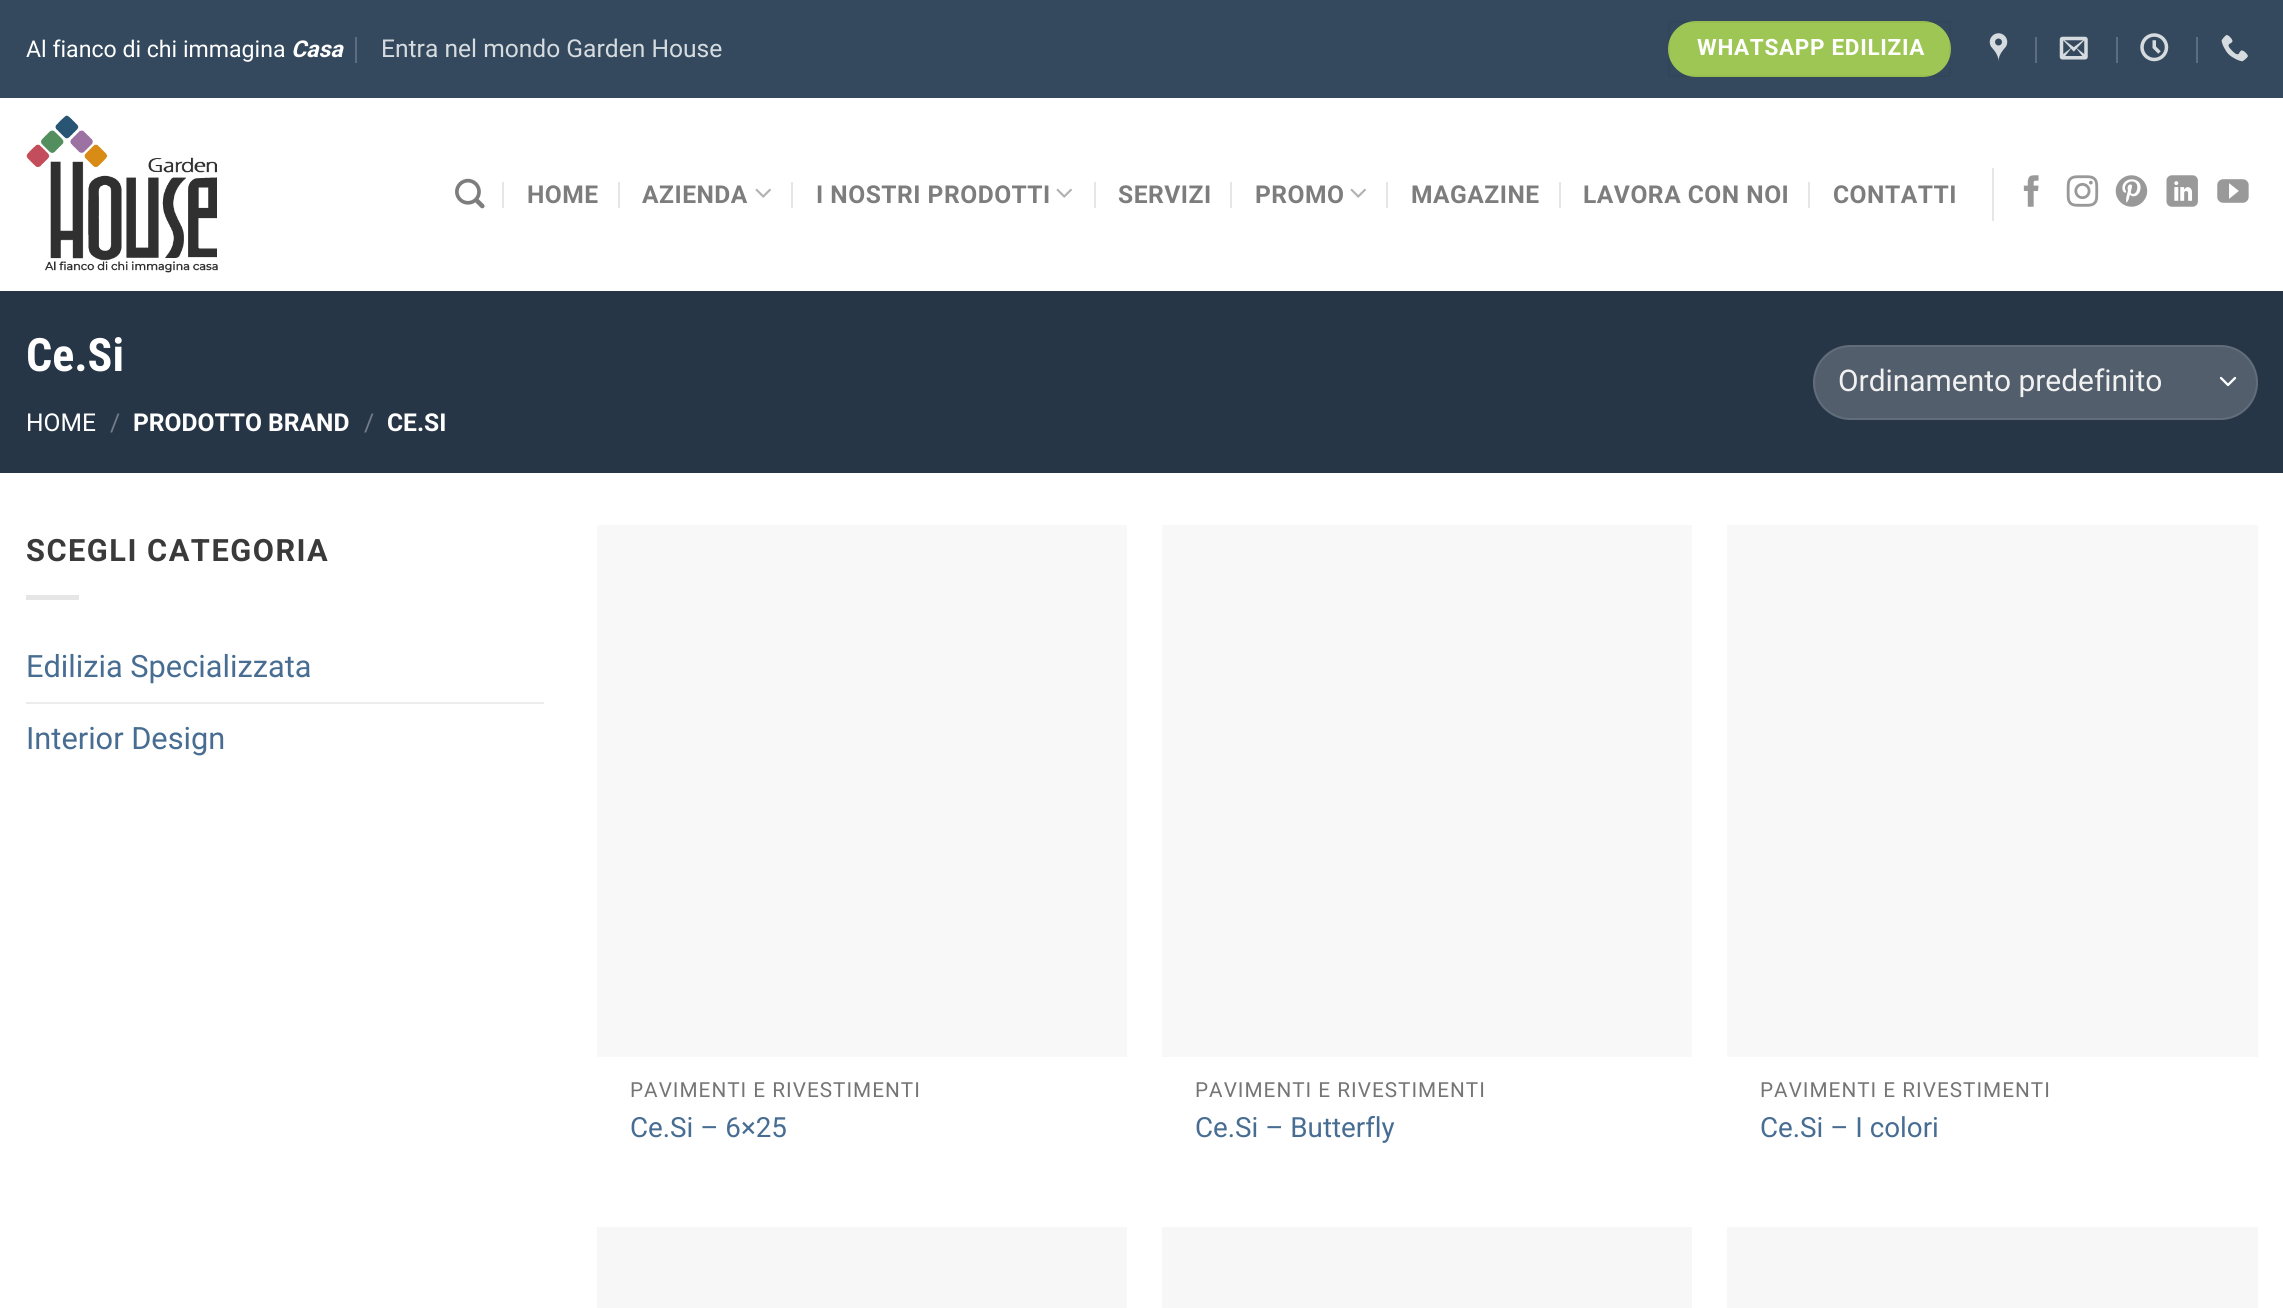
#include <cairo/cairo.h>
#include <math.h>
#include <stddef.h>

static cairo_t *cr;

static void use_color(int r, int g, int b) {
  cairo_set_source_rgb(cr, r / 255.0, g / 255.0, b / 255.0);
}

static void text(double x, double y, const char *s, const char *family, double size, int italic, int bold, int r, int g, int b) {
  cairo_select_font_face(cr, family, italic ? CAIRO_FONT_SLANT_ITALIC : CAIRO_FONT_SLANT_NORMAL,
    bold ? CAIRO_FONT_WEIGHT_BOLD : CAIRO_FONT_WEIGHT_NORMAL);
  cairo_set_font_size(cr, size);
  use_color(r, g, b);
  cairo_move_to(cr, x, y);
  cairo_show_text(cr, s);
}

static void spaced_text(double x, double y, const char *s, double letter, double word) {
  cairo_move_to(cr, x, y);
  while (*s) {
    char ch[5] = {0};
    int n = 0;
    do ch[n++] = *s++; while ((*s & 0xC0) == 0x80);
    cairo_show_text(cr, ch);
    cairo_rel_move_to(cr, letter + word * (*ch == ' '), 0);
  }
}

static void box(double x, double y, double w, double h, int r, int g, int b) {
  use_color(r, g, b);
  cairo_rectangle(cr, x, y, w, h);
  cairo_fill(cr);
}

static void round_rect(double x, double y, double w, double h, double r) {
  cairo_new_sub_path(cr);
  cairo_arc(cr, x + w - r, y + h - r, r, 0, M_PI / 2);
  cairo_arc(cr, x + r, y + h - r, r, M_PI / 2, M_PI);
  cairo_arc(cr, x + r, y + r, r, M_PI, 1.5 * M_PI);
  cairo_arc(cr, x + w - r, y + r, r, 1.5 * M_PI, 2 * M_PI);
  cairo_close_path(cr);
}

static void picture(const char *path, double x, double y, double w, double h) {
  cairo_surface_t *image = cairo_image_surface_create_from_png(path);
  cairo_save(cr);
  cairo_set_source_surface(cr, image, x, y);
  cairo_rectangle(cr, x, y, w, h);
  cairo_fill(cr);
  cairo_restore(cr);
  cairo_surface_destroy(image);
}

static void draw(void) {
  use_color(255, 255, 255);
  cairo_paint(cr);
  box(0, 0, 2283, 98, 52, 73, 94);
  box(355, 37, 2, 26, 93, 109, 126);
  use_color(158, 198, 85);
  round_rect(1668, 21, 283, 56, 28);
  cairo_fill(cr);
  cairo_rectangle(cr, 1669, 22, 281, 54);
  cairo_set_source_rgba(cr, 0, 0, 0, 0.05);
  cairo_stroke(cr);
  picture("img_01.png", 1989, 33, 19, 28);
  box(2035, 37, 2, 26, 93, 109, 126);
  picture("img_02.png", 2059, 36, 29, 24);
  box(2116, 37, 2, 26, 93, 109, 126);
  picture("img_03.png", 2140, 33, 29, 29);
  box(2196, 37, 2, 26, 93, 109, 126);
  picture("img_04.png", 2221, 35, 27, 27);
  picture("img_05.png", 26, 115, 192, 158);
  picture("img_06.png", 455, 178, 30, 31);
  box(502, 182, 2, 26, 230, 230, 230);
  box(618, 182, 2, 26, 230, 230, 230);
  picture("img_07.png", 755, 188, 16, 10);
  box(791, 182, 2, 26, 230, 230, 230);
  picture("img_07.png", 1056, 188, 16, 10);
  box(1094, 182, 2, 26, 230, 230, 230);
  box(1230, 182, 2, 26, 230, 230, 230);
  picture("img_07.png", 1350, 188, 16, 10);
  box(1386, 182, 2, 26, 230, 230, 230);
  box(1559, 182, 2, 26, 230, 230, 230);
  box(1808, 182, 2, 26, 230, 230, 230);
  box(1992, 168, 2, 53, 230, 230, 230);
  picture("img_08.png", 2023, 175, 16, 32);
  picture("img_09.png", 2066, 175, 33, 32);
  picture("img_10.png", 2115, 175, 33, 32);
  picture("img_11.png", 2166, 175, 32, 32);
  picture("img_12.png", 2217, 179, 32, 24);
  box(0, 291, 2283, 182, 39, 54, 71);
  use_color(82, 94, 108);
  round_rect(1813, 345, 445, 75, 37.5);
  cairo_fill(cr);
  cairo_new_path(cr);
  cairo_move_to(cr, 2221, 378);
  cairo_line_to(cr, 2228, 385);
  cairo_line_to(cr, 2235, 378);
  use_color(255, 255, 255);
  cairo_set_line_width(cr, 2.3);
  cairo_set_line_cap(cr, CAIRO_LINE_CAP_ROUND);
  cairo_set_line_join(cr, CAIRO_LINE_JOIN_ROUND);
  cairo_stroke(cr);
  round_rect(1814, 346, 443, 73, 36.5);
  cairo_set_source_rgba(cr, 1, 1, 1, 0.09);
  cairo_set_line_width(cr, 2);
  cairo_set_line_cap(cr, CAIRO_LINE_CAP_BUTT);
  cairo_set_line_join(cr, CAIRO_LINE_JOIN_MITER);
  cairo_stroke(cr);
  box(26, 595, 53, 5, 230, 230, 230);
  box(26, 702, 518, 2, 236, 236, 236);
  box(597, 525, 530, 532, 248, 248, 248);
  box(1162, 525, 530, 532, 248, 248, 248);
  box(1727, 525, 531, 532, 248, 248, 248);
  box(597, 1227, 530, 81, 247, 247, 247);
  box(1162, 1227, 530, 81, 247, 247, 247);
  box(1727, 1227, 531, 81, 247, 247, 247);
  text(26, 57, "Al fianco di chi immagina", "Roboto", 23.1, 0, 0, 255, 255, 255);
  text(291, 57, "Casa", "Roboto", 23.1, 1, 1, 255, 255, 255);
  text(381, 57, "Entra nel mondo Garden House", "Roboto", 24.6, 0, 0, 214, 219, 223);
  cairo_select_font_face(cr, "Roboto", CAIRO_FONT_SLANT_NORMAL, CAIRO_FONT_WEIGHT_BOLD);
  cairo_set_font_size(cr, 22.5);
  use_color(255, 255, 255);
  spaced_text(1697, 55, "WHATSAPP EDILIZIA", 0.7, 0);
  cairo_set_font_size(cr, 24.6);
  use_color(125, 125, 125);
  spaced_text(527, 203, "HOME", 0.5, 0);
  spaced_text(642, 203, "AZIENDA", 0.5, 0);
  spaced_text(816, 203, "I NOSTRI PRODOTTI", 0.5, 0);
  spaced_text(1118, 203, "SERVIZI", 0.5, 0);
  spaced_text(1255, 203, "PROMO", 0.5, 0);
  spaced_text(1411, 203, "MAGAZINE", 0.5, 0);
  spaced_text(1583, 203, "LAVORA CON NOI", 0.5, 0);
  spaced_text(1833, 203, "CONTATTI", 0.5, 0);
  text(26, 371, "Ce.Si", "Roboto Condensed", 46, 0, 1, 255, 255, 255);
  text(26, 431, "HOME", "Roboto", 24.6, 0, 0, 255, 255, 255);
  text(110, 431, "/", "Roboto", 24.6, 0, 0, 115, 124, 135);
  text(133, 431, "PRODOTTO BRAND", "Roboto", 24.6, 0, 1, 255, 255, 255);
  text(364, 431, "/", "Roboto", 24.6, 0, 0, 115, 124, 135);
  text(387, 431, "CE.SI", "Roboto", 24.6, 0, 1, 255, 255, 255);
  text(1838, 391, "Ordinamento predefinito", "Roboto", 29.9, 0, 0, 241, 241, 241);
  cairo_select_font_face(cr, "Roboto", CAIRO_FONT_SLANT_NORMAL, CAIRO_FONT_WEIGHT_BOLD);
  cairo_set_font_size(cr, 30.75);
  use_color(58, 58, 58);
  spaced_text(26, 561, "SCEGLI CATEGORIA", 1.5, 0);
  text(26, 677, "Edilizia Specializzata", "Roboto", 30.75, 0, 0, 72, 109, 146);
  text(26, 749, "Interior Design", "Roboto", 30.75, 0, 0, 72, 109, 146);
  cairo_set_font_size(cr, 20.75);
  use_color(117, 117, 117);
  spaced_text(630, 1097, "PAVIMENTI E RIVESTIMENTI", 1, 0);
  text(630, 1137, "Ce.Si – 6×25", "Roboto", 27.75, 0, 0, 72, 109, 146);
  cairo_set_font_size(cr, 20.75);
  use_color(117, 117, 117);
  spaced_text(1195, 1097, "PAVIMENTI E RIVESTIMENTI", 1, 0);
  text(1195, 1137, "Ce.Si – Butterfly", "Roboto", 27.75, 0, 0, 72, 109, 146);
  cairo_set_font_size(cr, 20.75);
  use_color(117, 117, 117);
  spaced_text(1760, 1097, "PAVIMENTI E RIVESTIMENTI", 1, 0);
  text(1760, 1137, "Ce.Si – I colori", "Roboto", 27.75, 0, 0, 72, 109, 146);
}

int main(void) {
  cairo_surface_t *surface = cairo_image_surface_create(CAIRO_FORMAT_RGB24, 2283, 1308);
  cr = cairo_create(surface);
  cairo_font_options_t *options = cairo_font_options_create();
  cairo_font_options_set_hint_metrics(options, CAIRO_HINT_METRICS_OFF);
  cairo_font_options_set_hint_style(options, CAIRO_HINT_STYLE_NONE);
  cairo_set_font_options(cr, options);
  cairo_set_miter_limit(cr, 4);
  draw();
  cairo_surface_write_to_png(surface, "out.png");
  cairo_font_options_destroy(options);
  cairo_destroy(cr);
  cairo_surface_destroy(surface);
  return 0;
}
